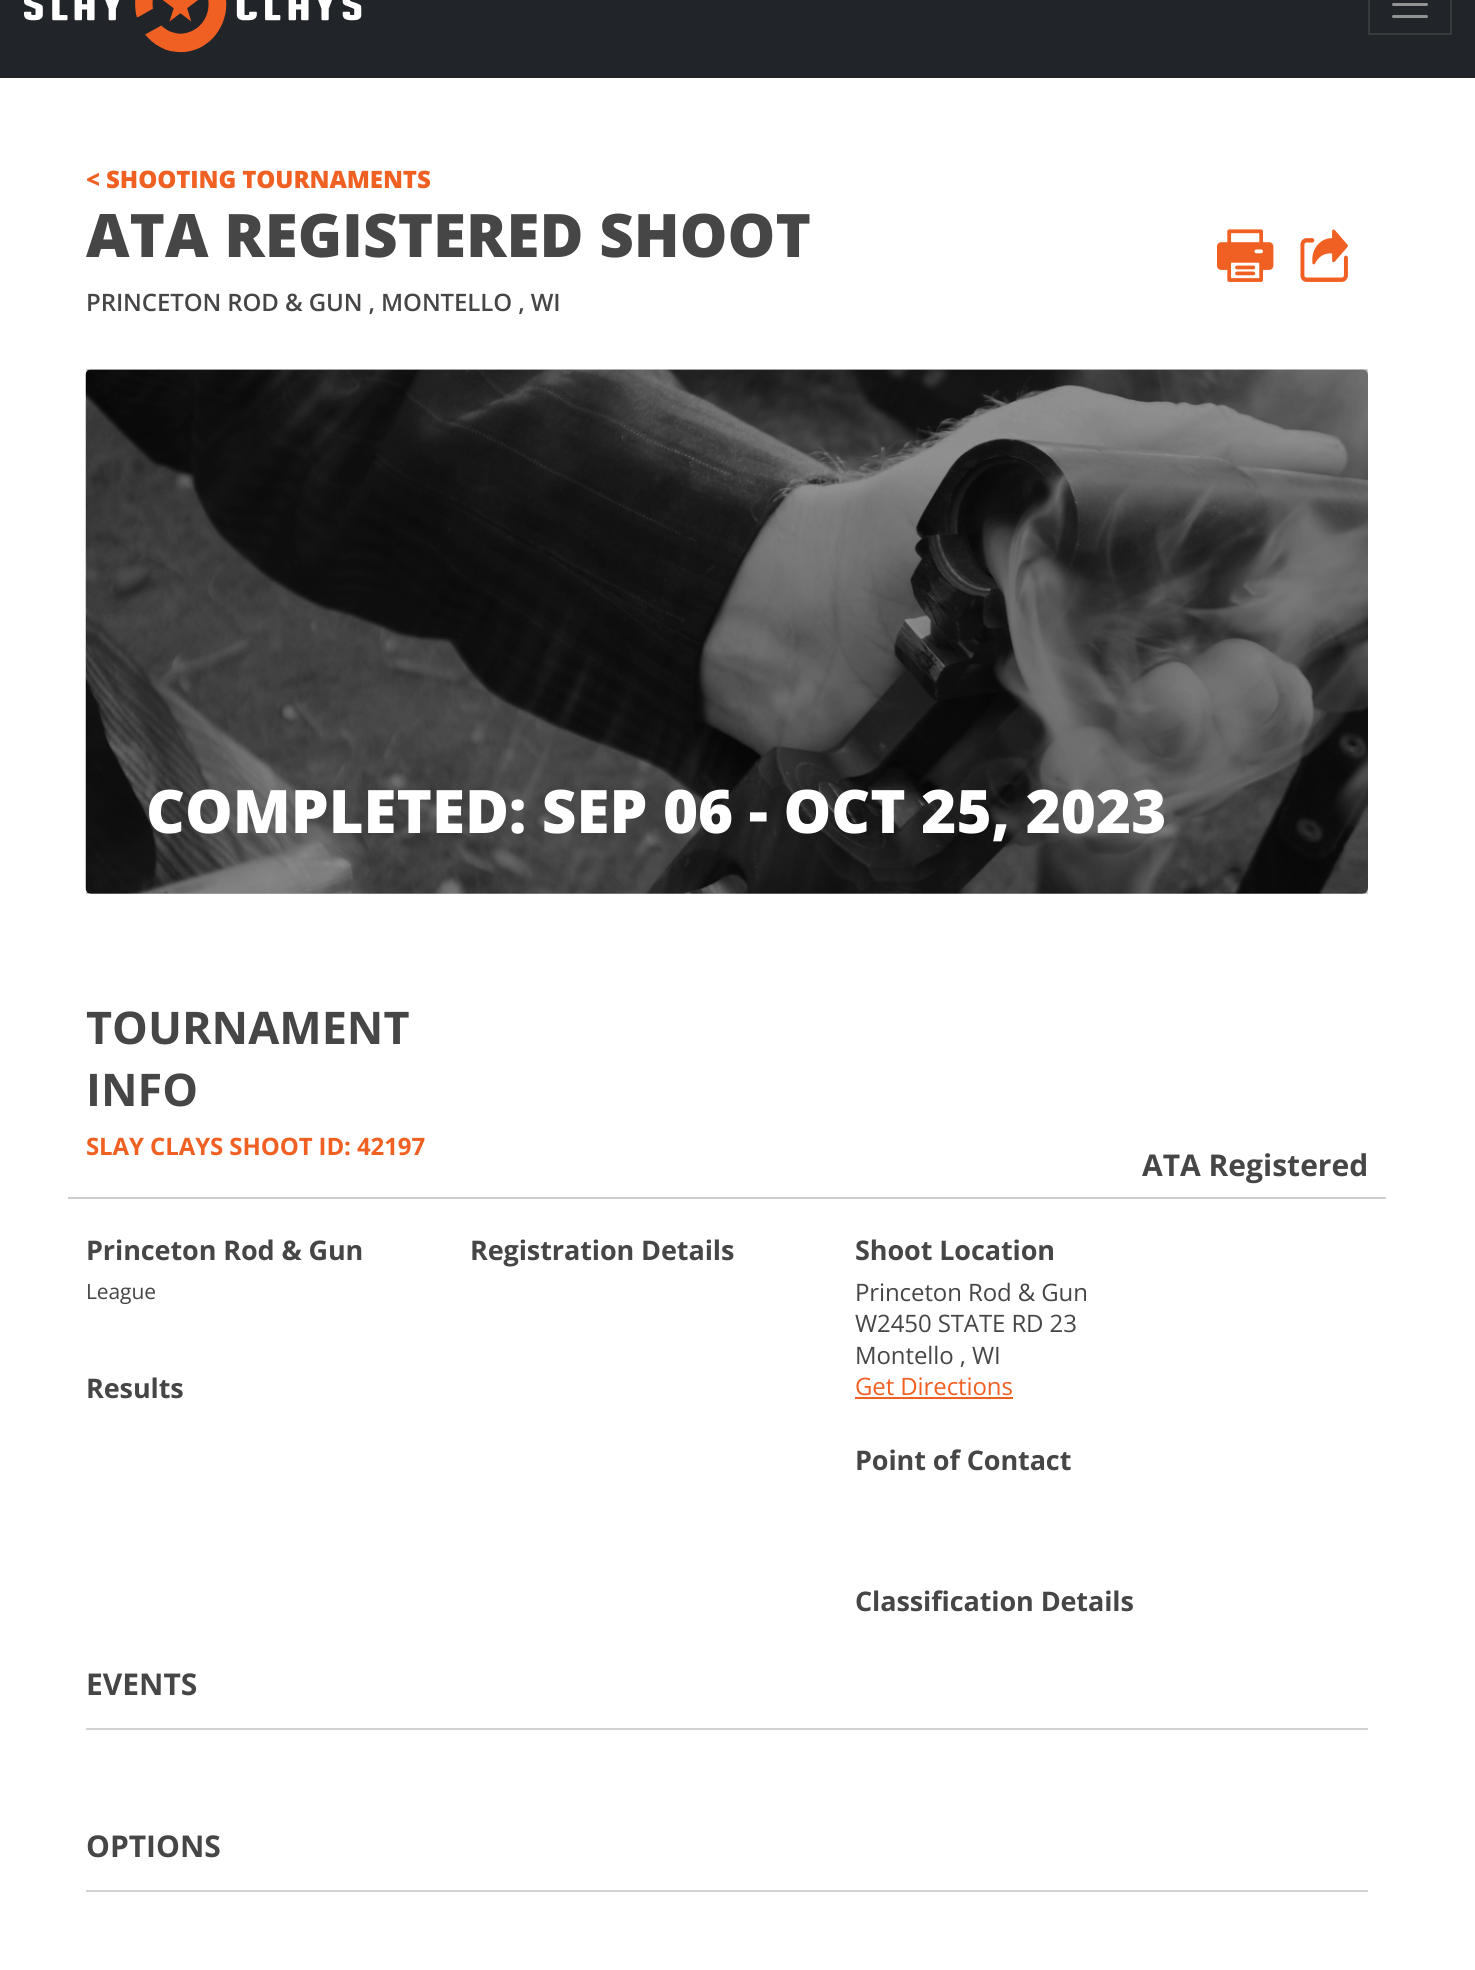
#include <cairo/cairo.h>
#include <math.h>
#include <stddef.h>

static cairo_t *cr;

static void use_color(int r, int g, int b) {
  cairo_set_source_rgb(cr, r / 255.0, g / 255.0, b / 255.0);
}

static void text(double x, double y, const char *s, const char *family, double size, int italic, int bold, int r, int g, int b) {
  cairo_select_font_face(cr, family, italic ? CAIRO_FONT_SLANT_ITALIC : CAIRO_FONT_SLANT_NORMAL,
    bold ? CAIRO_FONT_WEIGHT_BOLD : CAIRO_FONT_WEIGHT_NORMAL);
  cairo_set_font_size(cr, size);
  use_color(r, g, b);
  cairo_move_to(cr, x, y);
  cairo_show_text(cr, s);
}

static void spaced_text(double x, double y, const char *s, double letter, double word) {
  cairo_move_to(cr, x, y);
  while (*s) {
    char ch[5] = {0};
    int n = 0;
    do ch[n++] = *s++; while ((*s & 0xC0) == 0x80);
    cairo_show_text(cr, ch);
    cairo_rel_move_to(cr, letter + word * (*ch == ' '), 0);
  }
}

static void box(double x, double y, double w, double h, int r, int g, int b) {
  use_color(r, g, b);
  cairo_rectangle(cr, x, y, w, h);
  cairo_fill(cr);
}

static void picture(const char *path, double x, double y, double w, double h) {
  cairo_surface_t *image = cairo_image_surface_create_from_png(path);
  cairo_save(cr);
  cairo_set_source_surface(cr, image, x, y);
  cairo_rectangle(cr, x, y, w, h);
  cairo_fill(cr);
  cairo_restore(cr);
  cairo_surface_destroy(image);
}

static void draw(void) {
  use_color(255, 255, 255);
  cairo_paint(cr);
  box(86, 369, 1282, 525, 204, 204, 204);
  box(0, 0, 1475, 78, 33, 37, 41);
  picture("img_01.png", 24, 0, 338, 53);
  cairo_rectangle(cr, 1369, -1, 82, 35);
  use_color(55, 59, 62);
  cairo_stroke(cr);
  cairo_new_path(cr);
  cairo_move_to(cr, 1393.5, -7.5);
  cairo_line_to(cr, 1426.5, -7.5);
  cairo_move_to(cr, 1393.5, 4.5);
  cairo_line_to(cr, 1426.5, 4.5);
  cairo_move_to(cr, 1393.5, 16.5);
  cairo_line_to(cr, 1426.5, 16.5);
  use_color(144, 146, 148);
  cairo_set_line_width(cr, 3);
  cairo_set_line_cap(cr, CAIRO_LINE_CAP_ROUND);
  cairo_stroke(cr);
  picture("img_02.png", 1217, 229, 57, 53);
  picture("img_03.png", 1300, 229, 48, 53);
  picture("img_04.png", 85, 369, 1283, 525);
  box(68, 1197, 1318, 2, 204, 204, 204);
  box(855, 1397, 158, 2, 240, 96, 34);
  box(86, 1728, 1282, 2, 209, 209, 209);
  box(86, 1890, 1282, 2, 209, 209, 209);
  cairo_select_font_face(cr, "Open Sans ExtraBold", CAIRO_FONT_SLANT_NORMAL, CAIRO_FONT_WEIGHT_NORMAL);
  cairo_set_font_size(cr, 24);
  use_color(240, 96, 34);
  spaced_text(86, 188, "< SHOOTING TOURNAMENTS", -0.1, 0);
  text(86, 257, "ATA REGISTERED SHOOT", "Open Sans ExtraBold", 60, 0, 0, 70, 70, 70);
  cairo_select_font_face(cr, "Open Sans SemiBold", CAIRO_FONT_SLANT_NORMAL, CAIRO_FONT_WEIGHT_NORMAL);
  cairo_set_font_size(cr, 24);
  spaced_text(86, 311, "PRINCETON ROD & GUN , MONTELLO , WI", -0.1, 0);
  text(146, 833, "COMPLETED: SEP 06 - OCT 25, 2023", "Open Sans ExtraBold", 60, 0, 0, 255, 255, 255);
  text(86, 1044, "TOURNAMENT", "Open Sans", 45, 0, 1, 70, 70, 70);
  text(86, 1106, "INFO", "Open Sans", 45, 0, 1, 70, 70, 70);
  cairo_set_font_size(cr, 24);
  use_color(240, 96, 34);
  spaced_text(86, 1155, "SLAY CLAYS SHOOT ID: 42197", -0.1, 0);
  text(1142, 1176, "ATA Registered", "Open Sans", 30, 0, 1, 70, 70, 70);
  cairo_set_font_size(cr, 27);
  spaced_text(86, 1260, "Princeton Rod & Gun", -0.1, 0);
  cairo_select_font_face(cr, "Open Sans", CAIRO_FONT_SLANT_NORMAL, CAIRO_FONT_WEIGHT_NORMAL);
  cairo_set_font_size(cr, 21);
  spaced_text(86, 1299, "League", -0.1, 0);
  cairo_select_font_face(cr, "Open Sans", CAIRO_FONT_SLANT_NORMAL, CAIRO_FONT_WEIGHT_BOLD);
  cairo_set_font_size(cr, 27);
  spaced_text(470, 1260, "Registration Details", -0.1, 0);
  spaced_text(86, 1398, "Results", -0.1, 0);
  spaced_text(855, 1260, "Shoot Location", -0.1, 0);
  cairo_select_font_face(cr, "Open Sans", CAIRO_FONT_SLANT_NORMAL, CAIRO_FONT_WEIGHT_NORMAL);
  cairo_set_font_size(cr, 24);
  spaced_text(855, 1301, "Princeton Rod & Gun", -0.1, 0);
  spaced_text(855, 1332, "W2450 STATE RD 23", -0.1, 0);
  spaced_text(855, 1364, "Montello , WI", -0.1, 0);
  use_color(240, 96, 34);
  spaced_text(855, 1395, "Get Directions", -0.1, 0);
  cairo_select_font_face(cr, "Open Sans", CAIRO_FONT_SLANT_NORMAL, CAIRO_FONT_WEIGHT_BOLD);
  cairo_set_font_size(cr, 27);
  use_color(70, 70, 70);
  spaced_text(855, 1470, "Point of Contact", -0.1, 0);
  spaced_text(855, 1611, "Classification Details", -0.1, 0);
  text(86, 1695, "EVENTS", "Open Sans", 30, 0, 1, 70, 70, 70);
  text(86, 1857, "OPTIONS", "Open Sans", 30, 0, 1, 70, 70, 70);
}

int main(void) {
  cairo_surface_t *surface = cairo_image_surface_create(CAIRO_FORMAT_RGB24, 1475, 1970);
  cr = cairo_create(surface);
  cairo_font_options_t *options = cairo_font_options_create();
  cairo_font_options_set_hint_metrics(options, CAIRO_HINT_METRICS_OFF);
  cairo_font_options_set_hint_style(options, CAIRO_HINT_STYLE_NONE);
  cairo_set_font_options(cr, options);
  cairo_set_miter_limit(cr, 4);
  draw();
  cairo_surface_write_to_png(surface, "out.png");
  cairo_font_options_destroy(options);
  cairo_destroy(cr);
  cairo_surface_destroy(surface);
  return 0;
}
